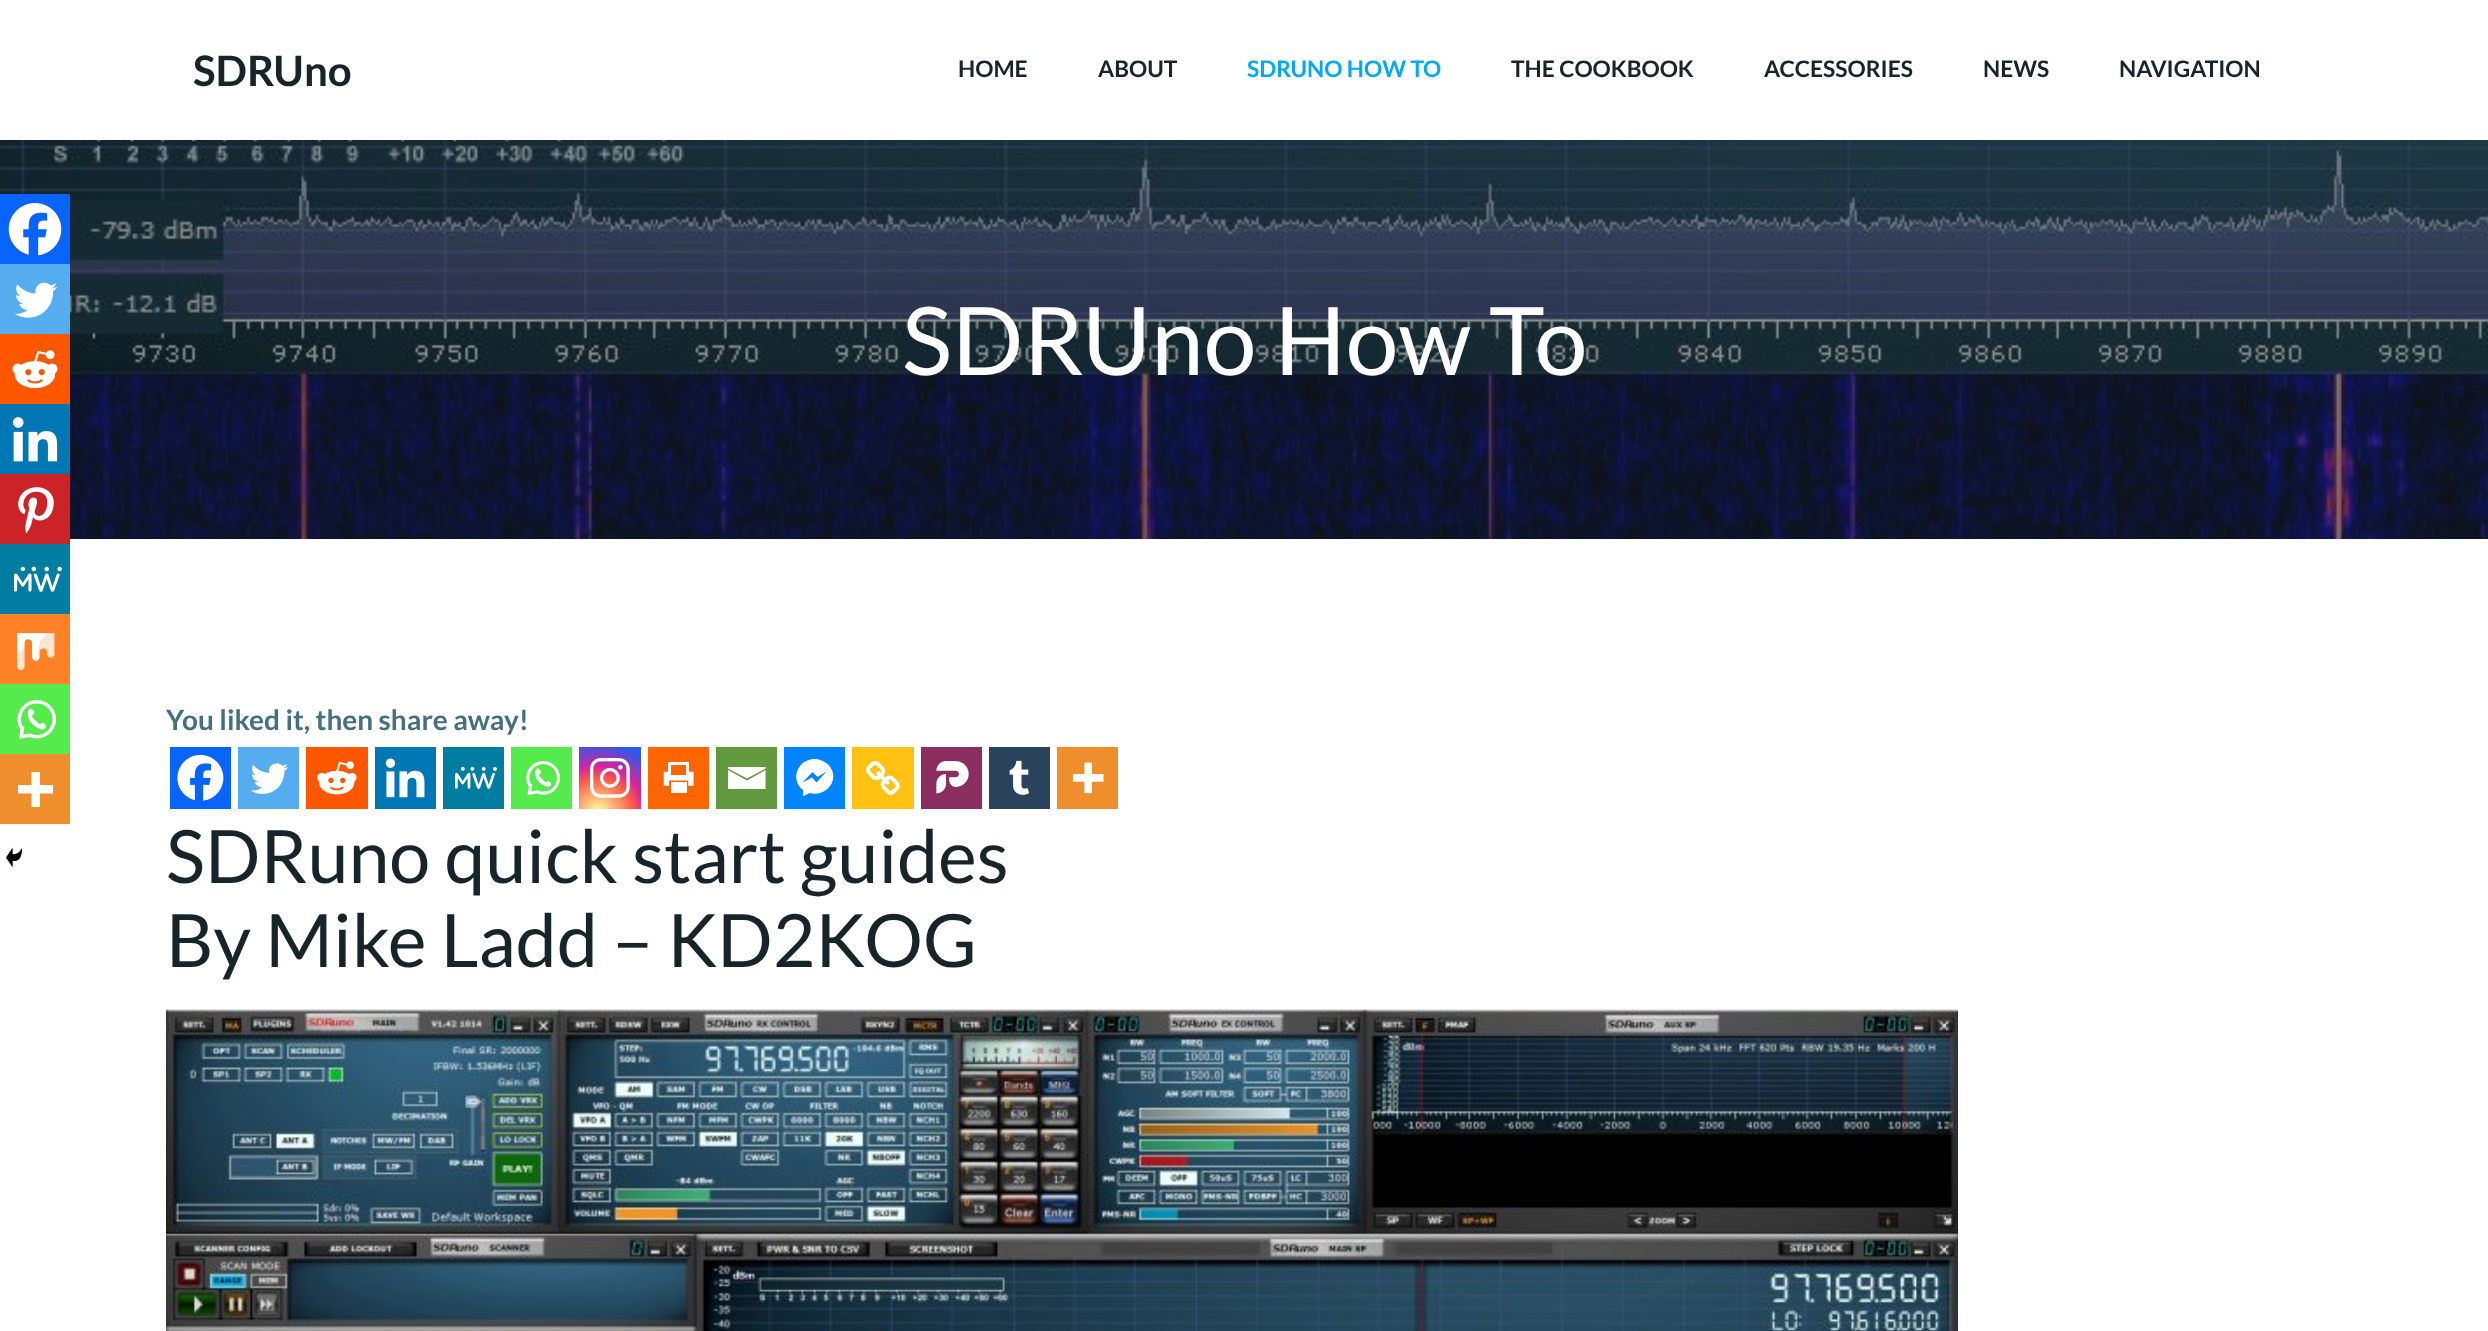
<!DOCTYPE html>
<meta charset="utf-8">
<style>body { margin: 0 } canvas { display: block }</style>
<canvas id="canvas" width="2488" height="1331"></canvas>
<img id="img1" src="images/1.png" hidden>
<img id="img2" src="images/2.png" hidden>
<img id="img3" src="images/3.png" hidden>
<img id="img4" src="images/4.png" hidden>
<img id="img5" src="images/5.png" hidden>
<img id="img6" src="images/6.png" hidden>
<img id="img7" src="images/7.png" hidden>
<img id="img8" src="images/8.png" hidden>
<img id="img9" src="images/9.png" hidden>
<img id="img10" src="images/10.png" hidden>
<img id="img11" src="images/11.png" hidden>
<img id="img12" src="images/12.png" hidden>
<img id="img13" src="images/13.png" hidden>
<img id="img14" src="images/14.png" hidden>
<img id="img15" src="images/15.png" hidden>
<img id="img16" src="images/16.png" hidden>
<img id="img17" src="images/17.png" hidden>
<img id="img18" src="images/18.png" hidden>
<img id="img19" src="images/19.png" hidden>
<img id="img20" src="images/20.png" hidden>
<img id="img21" src="images/21.png" hidden>
<img id="img22" src="images/22.png" hidden>
<img id="img23" src="images/23.png" hidden>
<script>
window.onload = function () {
    const canvas = document.getElementById('canvas');
    const context = canvas.getContext('2d');
    context.miterLimit = 4;
    context.fontKerning = 'normal';
    let gradient;

    context.fillStyle = 'rgb(255, 255, 255)';
    context.fillRect(0, 0, 2488, 1331);
    context.drawImage(document.getElementById('img1'), 0, 140, 2488, 399);
    context.fillStyle = 'rgb(7, 101, 254)';
    context.fillRect(0, 194, 70, 70);
    context.drawImage(document.getElementById('img2'), 8, 203, 54, 53);
    context.fillStyle = 'rgb(85, 172, 238)';
    context.fillRect(0, 264, 70, 70);
    context.drawImage(document.getElementById('img3'), 14, 282, 44, 36);
    context.fillStyle = 'rgb(255, 87, 0)';
    context.fillRect(0, 334, 70, 70);
    context.drawImage(document.getElementById('img4'), 12, 350, 46, 39);
    context.fillStyle = 'rgb(0, 119, 181)';
    context.fillRect(0, 404, 70, 70);
    context.drawImage(document.getElementById('img5'), 12, 417, 46, 45);
    context.fillStyle = 'rgb(204, 35, 41)';
    context.fillRect(0, 474, 70, 70);
    context.drawImage(document.getElementById('img6'), 18, 487, 36, 47);
    context.fillStyle = 'rgb(0, 125, 161)';
    context.fillRect(0, 544, 70, 70);
    context.drawImage(document.getElementById('img7'), 14, 566, 48, 26);
    context.fillStyle = 'rgb(255, 130, 38)';
    context.fillRect(0, 614, 70, 70);
    context.drawImage(document.getElementById('img8'), 17, 633, 38, 37);
    context.fillStyle = 'rgb(85, 235, 76)';
    context.fillRect(0, 684, 70, 70);
    context.drawImage(document.getElementById('img9'), 17, 700, 39, 39);
    context.fillStyle = 'rgb(238, 142, 45)';
    context.fillRect(0, 754, 70, 70);
    context.fillStyle = 'rgb(255, 255, 255)';
    context.beginPath();
    context.moveTo(40, 785);
    context.lineTo(40, 772);
    context.lineTo(31.5, 772);
    context.lineTo(31.5, 785);
    context.lineTo(18, 785);
    context.lineTo(18, 793.5);
    context.lineTo(31.5, 793.5);
    context.lineTo(31.5, 807);
    context.lineTo(40, 807);
    context.lineTo(40, 793.5);
    context.lineTo(53, 793.5);
    context.lineTo(53, 785);
    context.closePath();
    context.fill('evenodd');
    context.drawImage(document.getElementById('img10'), 6, 847, 16, 21);
    context.fillStyle = 'rgb(7, 101, 254)';
    context.fillRect(170, 747, 61, 62);
    context.drawImage(document.getElementById('img11'), 177, 754, 47, 47);
    context.fillStyle = 'rgb(85, 172, 238)';
    context.fillRect(238, 747, 61, 62);
    context.drawImage(document.getElementById('img12'), 250, 763, 39, 31);
    context.fillStyle = 'rgb(255, 87, 0)';
    context.fillRect(306, 747, 62, 62);
    context.drawImage(document.getElementById('img13'), 317, 761, 40, 34);
    context.fillStyle = 'rgb(0, 119, 181)';
    context.fillRect(375, 747, 61, 62);
    context.drawImage(document.getElementById('img14'), 385, 758, 40, 40);
    context.fillStyle = 'rgb(0, 125, 161)';
    context.fillRect(443, 747, 61, 62);
    context.drawImage(document.getElementById('img15'), 455, 766, 42, 23);
    context.fillStyle = 'rgb(85, 235, 76)';
    context.fillRect(511, 747, 61, 62);
    context.drawImage(document.getElementById('img16'), 526, 761, 34, 34);
    gradient = context.createRadialGradient(598, 813, 0, 598, 813, 78);
    gradient.addColorStop(0, 'rgb(253, 244, 151)');
    gradient.addColorStop(0.05, 'rgb(253, 244, 151)');
    gradient.addColorStop(0.45, 'rgb(253, 89, 73)');
    gradient.addColorStop(0.6, 'rgb(214, 36, 159)');
    gradient.addColorStop(0.9, 'rgb(40, 90, 235)');
    context.fillStyle = gradient;
    context.fillRect(579, 747, 62, 62);
    context.drawImage(document.getElementById('img17'), 590, 758, 40, 40);
    context.fillStyle = 'rgb(253, 101, 0)';
    context.fillRect(648, 747, 61, 62);
    context.drawImage(document.getElementById('img18'), 663, 762, 31, 31);
    context.fillStyle = 'rgb(100, 154, 63)';
    context.fillRect(716, 747, 61, 62);
    context.fillStyle = 'rgb(255, 255, 255)';
    context.beginPath();
    context.moveTo(726.5, 767);
    context.lineTo(765.5, 767);
    context.lineTo(765.5, 768.5);
    context.lineTo(747, 778.5);
    context.lineTo(728, 768.5);
    context.lineTo(728, 767);
    context.moveTo(728, 770);
    context.lineTo(747, 780.5);
    context.lineTo(765.5, 770);
    context.lineTo(765.5, 789);
    context.lineTo(728, 789);
    context.lineTo(728, 770);
    context.fill();
    context.fillStyle = 'rgb(0, 132, 255)';
    context.fillRect(784, 747, 61, 62);
    context.fillStyle = 'rgb(255, 255, 255)';
    context.beginPath();
    context.moveTo(814.5, 759);
    context.bezierCurveTo(798, 759, 789.5, 779.5, 803, 790);
    context.lineTo(803, 796.5);
    context.lineTo(809.5, 793);
    context.bezierCurveTo(827, 798, 842, 777.5, 827.5, 764);
    context.bezierCurveTo(824, 761, 819.5, 759, 814.5, 759);
    context.closePath();
    context.moveTo(816.5, 782.5);
    context.lineTo(812, 777.5);
    context.lineTo(802.5, 782.5);
    context.lineTo(812.5, 772);
    context.lineTo(817.5, 777);
    context.lineTo(826.5, 771.5);
    context.closePath();
    context.fill();
    context.fillStyle = 'rgb(255, 193, 18)';
    context.fillRect(852, 747, 62, 62);
    context.drawImage(document.getElementById('img19'), 866, 761, 34, 34);
    context.fillStyle = 'rgb(137, 46, 94)';
    context.fillRect(921, 747, 61, 62);
    context.drawImage(document.getElementById('img20'), 936, 761, 33, 33);
    context.fillStyle = 'rgb(41, 67, 93)';
    context.fillRect(989, 747, 61, 62);
    context.drawImage(document.getElementById('img21'), 1009, 760, 21, 35);
    context.fillStyle = 'rgb(238, 142, 45)';
    context.fillRect(1057, 747, 61, 62);
    context.drawImage(document.getElementById('img22'), 1072, 762, 32, 32);
    context.drawImage(document.getElementById('img23'), 166, 1009, 1792, 322);
    context.font = 'bold 42px Lato';
    context.fillStyle = 'rgb(23, 37, 42)';
    context.fillText('SDRUno', 193, 86);
    context.font = 'bold 22.75px Lato';
    context.fillText('HOME', 958, 77);
    context.fillText('ABOUT', 1098, 77);
    context.fillStyle = 'rgb(3, 169, 244)';
    context.fillText('SDRUNO HOW TO', 1247, 77);
    context.fillStyle = 'rgb(23, 37, 42)';
    context.fillText('THE COOKBOOK', 1511, 77);
    context.fillText('ACCESSORIES', 1764, 77);
    context.fillText('NEWS', 1983, 77);
    context.fillText('NAVIGATION', 2119, 77);
    context.font = '94.5px Lato';
    context.fillStyle = 'rgb(255, 255, 255)';
    context.fillText('SDRUno How To', 902, 375);
    context.font = 'bold 28px Lato';
    context.fillStyle = 'rgb(70, 112, 127)';
    context.fillText('You liked it, then share away!', 166, 730);
    context.font = '73.5px Lato';
    context.fillStyle = 'rgb(23, 37, 42)';
    context.fillText('SDRuno quick start guides', 166, 883);
    context.fillText('By Mike Ladd – KD2KOG', 166, 967);
};
</script>
